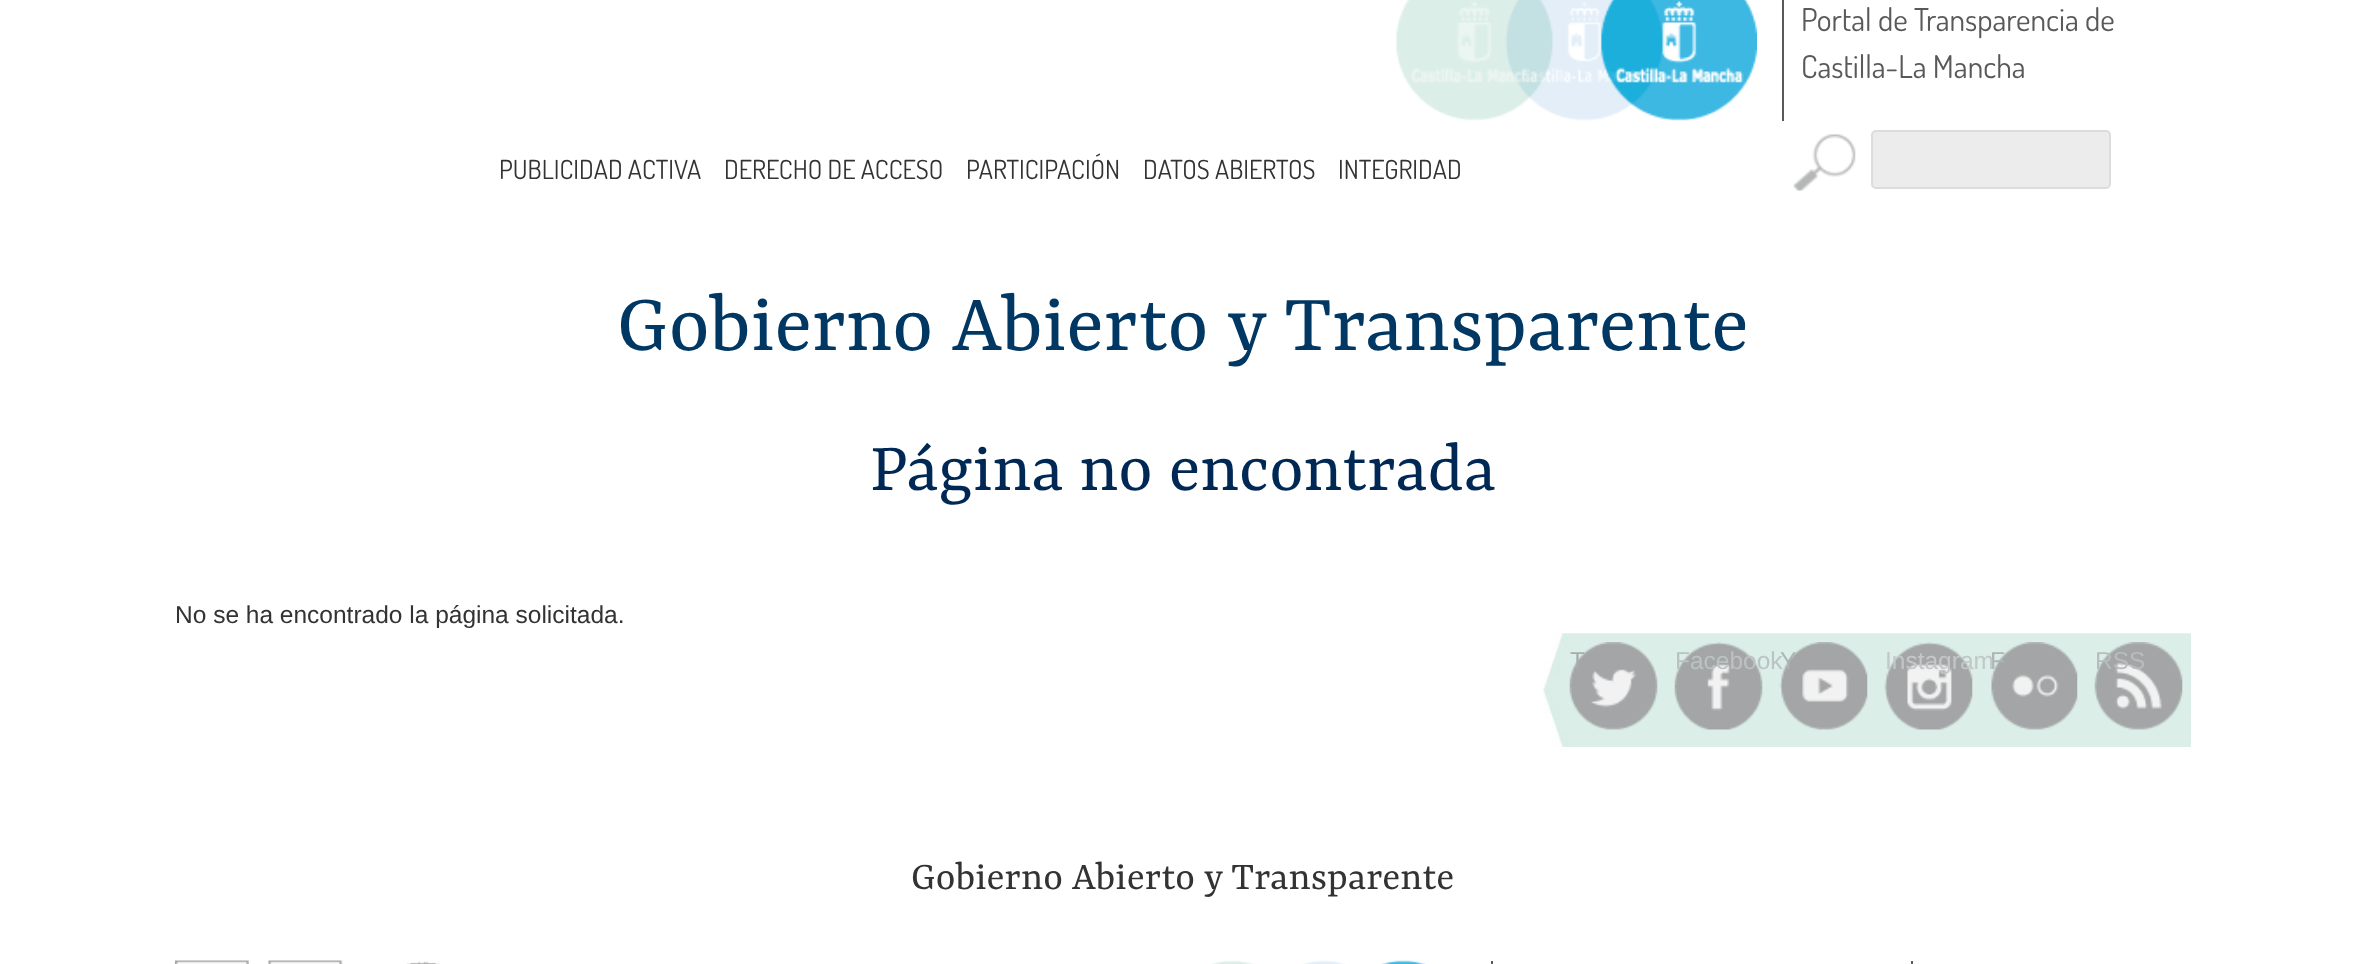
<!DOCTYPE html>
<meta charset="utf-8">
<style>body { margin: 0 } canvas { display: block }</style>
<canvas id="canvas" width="2365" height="964"></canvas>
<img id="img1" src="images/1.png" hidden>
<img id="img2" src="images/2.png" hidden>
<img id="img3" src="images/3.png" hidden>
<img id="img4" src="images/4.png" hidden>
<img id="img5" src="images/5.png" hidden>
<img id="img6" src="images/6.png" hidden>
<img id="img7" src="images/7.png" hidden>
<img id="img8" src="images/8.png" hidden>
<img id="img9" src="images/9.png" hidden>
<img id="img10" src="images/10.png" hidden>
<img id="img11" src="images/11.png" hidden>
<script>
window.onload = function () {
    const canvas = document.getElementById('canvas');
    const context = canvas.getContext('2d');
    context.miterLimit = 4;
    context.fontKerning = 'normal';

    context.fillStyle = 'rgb(255, 255, 255)';
    context.fillRect(0, 0, 2365, 964);
    context.drawImage(document.getElementById('img1'), 1396, 0, 361, 121);
    context.fillStyle = 'rgb(89, 89, 89)';
    context.fillRect(1782, 0, 2, 121);
    context.drawImage(document.getElementById('img2'), 1793, 134, 63, 57);
    context.fillStyle = 'rgb(236, 236, 236)';
    context.beginPath();
    context.roundRect(1872, 131, 238, 57, 4);
    context.fill();
    context.strokeStyle = 'rgb(220, 220, 220)';
    context.lineWidth = 2;
    context.stroke();
    context.drawImage(document.getElementById('img3'), 1543, 633, 648, 114);
    context.drawImage(document.getElementById('img4'), 1569, 642, 89, 88);
    context.drawImage(document.getElementById('img5'), 1674, 642, 89, 88);
    context.drawImage(document.getElementById('img6'), 1779, 642, 89, 88);
    context.drawImage(document.getElementById('img7'), 1884, 642, 89, 88);
    context.drawImage(document.getElementById('img8'), 1991, 642, 87, 88);
    context.drawImage(document.getElementById('img9'), 2094, 642, 89, 88);
    context.drawImage(document.getElementById('img10'), 175, 960, 265, 4);
    context.drawImage(document.getElementById('img11'), 1211, 960, 215, 4);
    context.fillStyle = 'rgb(89, 89, 89)';
    context.fillRect(1911, 961, 2, 3);
    context.fillRect(1491, 961, 2, 3);
    context.font = '31.5px Dosis';
    context.fillText('Portal de Transparencia de', 1801, 31);
    context.fillText('Castilla-La Mancha', 1801, 78);
    context.font = '26.25px Dosis';
    context.fillStyle = 'rgb(51, 51, 51)';
    context.fillText('PUBLICIDAD ACTIVA', 499, 179);
    context.fillText('DERECHO DE ACCESO', 724, 179);
    context.fillText('PARTICIPACIÓN', 966, 179);
    context.fillText('DATOS ABIERTOS', 1143, 179);
    context.fillText('INTEGRIDAD', 1338, 179);
    context.font = '87.5px Yrsa';
    context.fillStyle = 'rgb(0, 56, 99)';
    context.fillText('Gobierno Abierto y Transparente', 617, 350);
    context.font = '73.5px Yrsa';
    context.fillStyle = 'rgb(0, 40, 85)';
    context.fillText('Página no encontrada', 870, 490);
    context.font = '24.5px Liberation Sans';
    context.fillStyle = 'rgb(51, 51, 51)';
    context.fillText('No se ha encontrado la página solicitada.', 175, 623);
    context.fillStyle = 'rgb(168, 172, 172)';
    context.fillText('T', 1570, 669);
    context.fillStyle = 'rgb(175, 181, 181)';
    context.fillText('Y', 1780, 669);
    context.fillStyle = 'rgb(187, 195, 194)';
    context.fillText('Facebook', 1675, 669);
    context.fillStyle = 'rgb(175, 181, 181)';
    context.fillText('F', 1990, 669);
    context.fillStyle = 'rgb(193, 200, 199)';
    context.fillText('Instagram', 1885, 669);
    context.fillStyle = 'rgb(184, 189, 188)';
    context.fillText('RSS', 2095, 669);
    context.font = '42px Yrsa';
    context.fillStyle = 'rgb(51, 51, 51)';
    context.fillText('Gobierno Abierto y Transparente', 911, 889);
};
</script>
